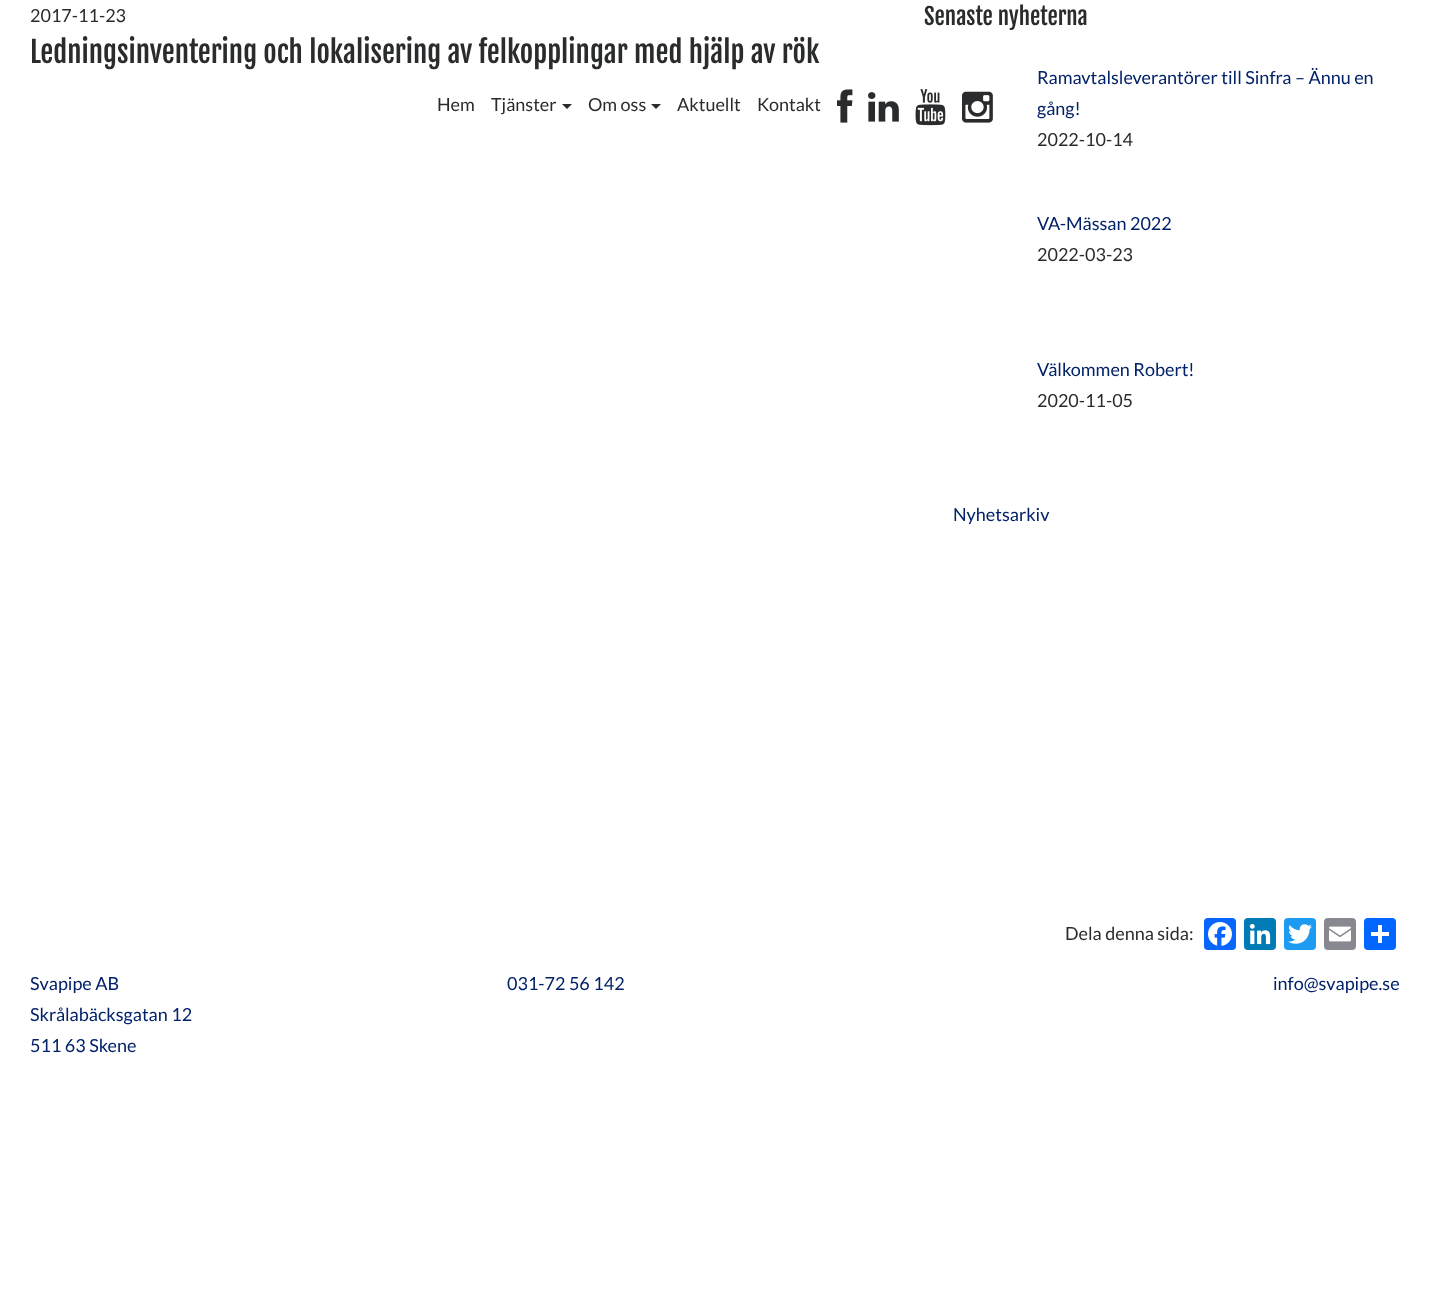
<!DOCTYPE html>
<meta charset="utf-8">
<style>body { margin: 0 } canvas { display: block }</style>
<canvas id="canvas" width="1430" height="1294"></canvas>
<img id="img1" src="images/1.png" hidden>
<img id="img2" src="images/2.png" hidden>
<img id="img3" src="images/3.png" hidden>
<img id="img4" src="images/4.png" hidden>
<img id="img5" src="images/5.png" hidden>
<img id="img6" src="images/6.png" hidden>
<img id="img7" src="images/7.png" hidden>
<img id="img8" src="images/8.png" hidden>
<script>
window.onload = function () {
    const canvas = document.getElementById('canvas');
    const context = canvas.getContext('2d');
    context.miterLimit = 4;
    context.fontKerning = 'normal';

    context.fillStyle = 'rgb(255, 255, 255)';
    context.fillRect(0, 0, 1430, 1294);
    context.fillStyle = 'rgb(41, 43, 44)';
    context.beginPath();
    context.moveTo(562, 104);
    context.lineTo(572, 104);
    context.lineTo(567, 109);
    context.closePath();
    context.fill();
    context.beginPath();
    context.moveTo(651, 104);
    context.lineTo(661, 104);
    context.lineTo(656, 109);
    context.closePath();
    context.fill();
    context.drawImage(document.getElementById('img1'), 837, 89, 16, 34);
    context.drawImage(document.getElementById('img2'), 868, 92, 31, 30);
    context.drawImage(document.getElementById('img3'), 915, 89, 31, 37);
    context.drawImage(document.getElementById('img4'), 962, 91, 31, 32);
    context.fillStyle = 'rgb(8, 102, 255)';
    context.beginPath();
    context.roundRect(1204, 918, 32, 32, 4);
    context.fill();
    context.drawImage(document.getElementById('img5'), 1208, 922, 24, 24);
    context.fillStyle = 'rgb(0, 123, 181)';
    context.beginPath();
    context.roundRect(1244, 918, 32, 32, 4);
    context.fill();
    context.drawImage(document.getElementById('img6'), 1249, 923, 22, 22);
    context.fillStyle = 'rgb(29, 155, 240)';
    context.beginPath();
    context.roundRect(1284, 918, 32, 32, 4);
    context.fill();
    context.drawImage(document.getElementById('img7'), 1288, 924, 24, 20);
    context.fillStyle = 'rgb(136, 137, 144)';
    context.beginPath();
    context.roundRect(1324, 918, 32, 32, 4);
    context.fill();
    context.drawImage(document.getElementById('img8'), 1329, 926, 22, 16);
    context.fillStyle = 'rgb(1, 102, 255)';
    context.beginPath();
    context.roundRect(1364, 918, 32, 32, 4);
    context.fill();
    context.fillStyle = 'rgb(255, 255, 255)';
    context.fillRect(1378, 925, 4, 18);
    context.fillRect(1371, 932, 18, 4);
    context.font = '18px Lato';
    context.fillStyle = 'rgb(41, 43, 44)';
    context.fillText('2017-11-23', 30, 22);
    context.font = '29px Fjalla One';
    context.fillText('Ledningsinventering och lokalisering av felkopplingar med hjälp av rök', 30, 63);
    context.font = '23px Fjalla One';
    context.fillText('Senaste nyheterna', 924, 25);
    context.font = '18px Lato';
    context.fillStyle = 'rgb(1, 33, 105)';
    context.fillText('Ramavtalsleverantörer till Sinfra – Ännu en', 1037, 84);
    context.fillText('gång!', 1037, 115);
    context.fillStyle = 'rgb(41, 43, 44)';
    context.fillText('2022-10-14', 1037, 146);
    context.fillStyle = 'rgb(1, 33, 105)';
    context.fillText('VA-Mässan 2022', 1037, 230);
    context.fillStyle = 'rgb(41, 43, 44)';
    context.fillText('2022-03-23', 1037, 261);
    context.fillStyle = 'rgb(1, 33, 105)';
    context.fillText('Välkommen Robert!', 1037, 376);
    context.fillStyle = 'rgb(41, 43, 44)';
    context.fillText('2020-11-05', 1037, 407);
    context.fillStyle = 'rgb(1, 33, 105)';
    context.fillText('Nyhetsarkiv', 953, 521);
    context.fillStyle = 'rgb(41, 43, 44)';
    context.fillText('Hem', 437, 111);
    context.fillText('Tjänster', 491, 111);
    context.fillText('Om oss', 588, 111);
    context.fillText('Aktuellt', 677, 111);
    context.fillText('Kontakt', 757, 111);
    context.fillText('Dela denna sida:', 1065, 940);
    context.fillStyle = 'rgb(1, 33, 105)';
    context.fillText('Svapipe AB', 30, 990);
    context.fillText('Skrålabäcksgatan 12', 30, 1021);
    context.fillText('511 63 Skene', 30, 1052);
    context.fillText('031-72 56 142', 507, 990);
    context.fillText('info@svapipe.se', 1273, 990);
};
</script>
